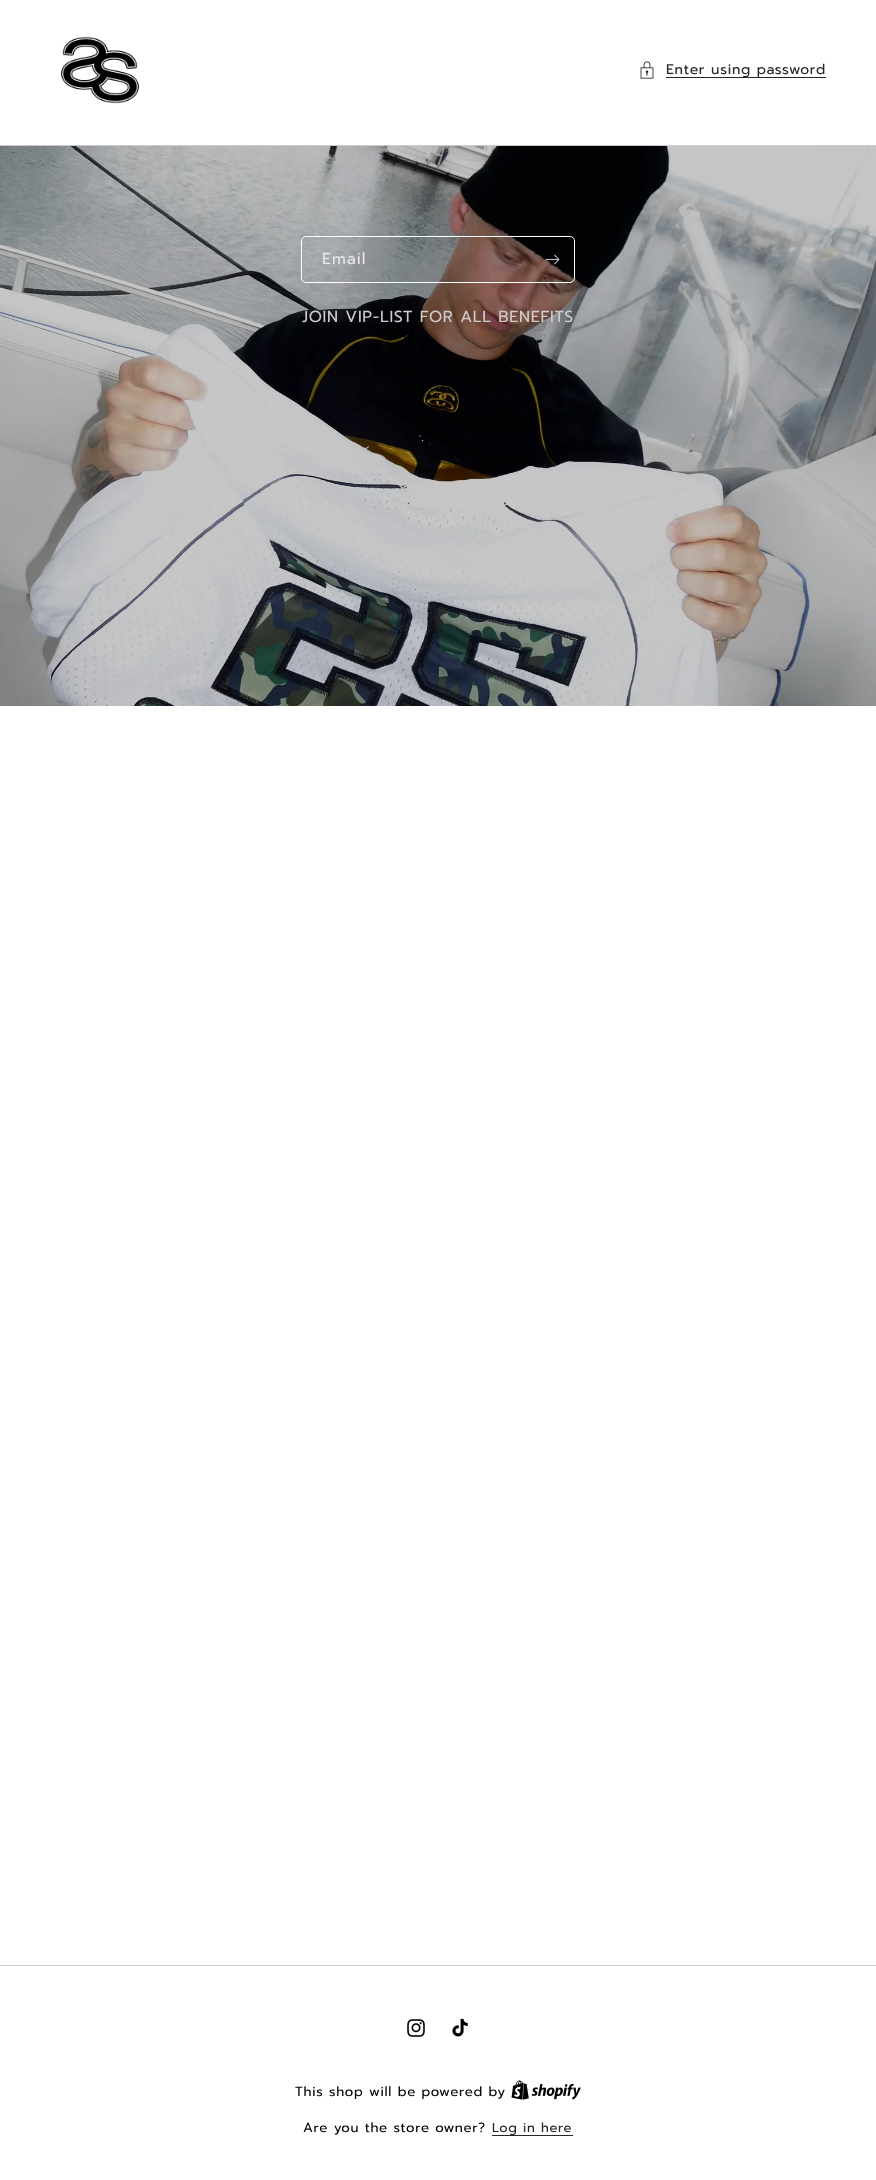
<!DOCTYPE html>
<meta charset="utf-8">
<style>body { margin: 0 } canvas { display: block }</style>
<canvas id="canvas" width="876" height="2180"></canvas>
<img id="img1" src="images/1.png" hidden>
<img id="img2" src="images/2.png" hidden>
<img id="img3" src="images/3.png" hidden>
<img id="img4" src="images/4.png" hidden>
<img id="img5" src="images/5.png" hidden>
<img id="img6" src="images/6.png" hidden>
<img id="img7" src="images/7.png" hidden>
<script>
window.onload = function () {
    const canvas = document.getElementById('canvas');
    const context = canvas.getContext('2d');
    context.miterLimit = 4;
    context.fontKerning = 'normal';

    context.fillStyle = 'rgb(255, 255, 255)';
    context.fillRect(0, 0, 876, 2180);
    context.drawImage(document.getElementById('img1'), 61, 36, 78, 68);
    context.drawImage(document.getElementById('img2'), 640, 61, 14, 18);
    context.fillStyle = 'rgb(38, 38, 38)';
    context.fillRect(666, 77, 160, 1);
    context.fillStyle = 'rgb(204, 204, 204)';
    context.fillRect(0, 145, 876, 1);
    context.drawImage(document.getElementById('img3'), 0, 146, 876, 560);
    context.beginPath();
    context.roundRect(301.5, 236.5, 273, 46, 4.5);
    context.strokeStyle = 'rgb(255, 255, 255)';
    context.stroke();
    context.drawImage(document.getElementById('img4'), 545, 254, 15, 11);
    context.fillRect(0, 1965, 876, 1);
    context.drawImage(document.getElementById('img5'), 407, 2019, 18, 18);
    context.drawImage(document.getElementById('img6'), 452, 2018, 16, 19);
    context.drawImage(document.getElementById('img7'), 511, 2080, 70, 20);
    context.fillStyle = 'rgb(38, 38, 38)';
    context.fillRect(492, 2135, 81, 1);
    context.letterSpacing = '0.7px';
    context.font = '14px Prompt';
    context.fillText('Enter using password', 666, 74);
    context.letterSpacing = '1px';
    context.font = '16px Prompt';
    context.fillStyle = 'rgb(231, 231, 232)';
    context.fillText('Email', 322, 264);
    context.letterSpacing = '0.7px';
    context.fillStyle = 'rgb(208, 204, 203)';
    context.fillText('JOIN VIP-LIST FOR ALL BENEFITS', 302, 322);
    context.font = '13.3px Prompt';
    context.fillStyle = 'rgb(0, 0, 0)';
    context.fillText('This shop will be powered by', 295, 2096);
    context.fillText('Are you the store owner?', 303, 2132);
    context.font = '13px Prompt';
    context.fillStyle = 'rgb(38, 38, 38)';
    context.fillText('Log in here', 492, 2132);
};
</script>
